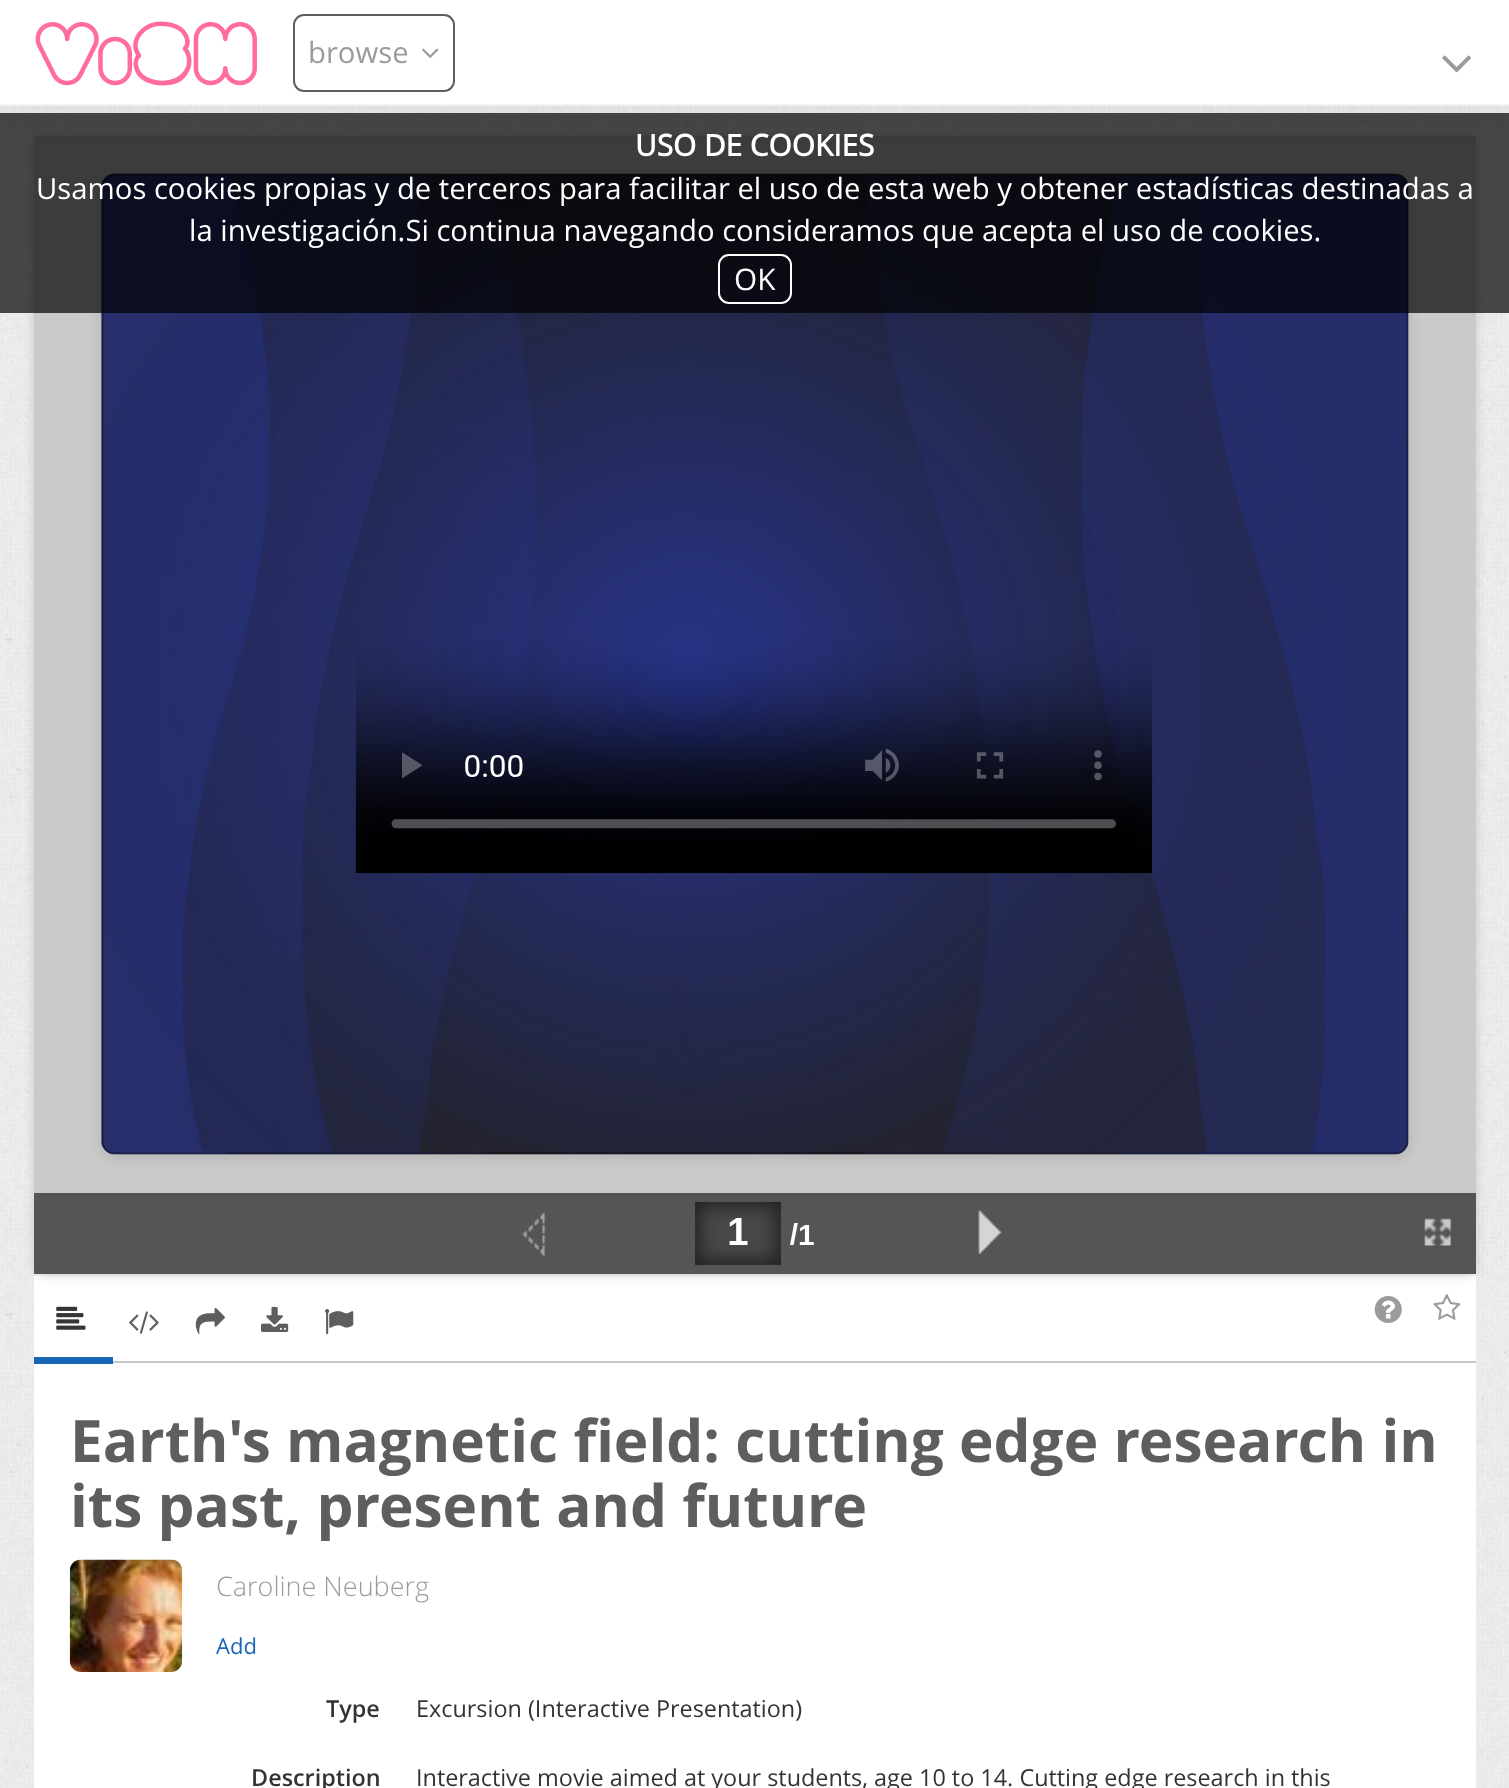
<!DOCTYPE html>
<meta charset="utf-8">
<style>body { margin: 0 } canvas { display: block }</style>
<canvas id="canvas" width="1509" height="1788"></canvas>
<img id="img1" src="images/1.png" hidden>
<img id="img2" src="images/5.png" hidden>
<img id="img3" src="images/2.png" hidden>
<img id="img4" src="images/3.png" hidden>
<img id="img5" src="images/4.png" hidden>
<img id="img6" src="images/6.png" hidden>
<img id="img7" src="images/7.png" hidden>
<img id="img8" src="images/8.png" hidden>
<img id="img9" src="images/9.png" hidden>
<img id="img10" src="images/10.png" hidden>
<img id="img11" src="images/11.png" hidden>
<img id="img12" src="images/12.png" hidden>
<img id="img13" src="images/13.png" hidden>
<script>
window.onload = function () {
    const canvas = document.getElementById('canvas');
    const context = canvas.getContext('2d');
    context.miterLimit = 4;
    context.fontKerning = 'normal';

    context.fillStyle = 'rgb(255, 255, 255)';
    context.fillRect(0, 0, 1509, 1788);
    context.drawImage(document.getElementById('img1'), 0, 106, 1509, 1682);
    context.fillRect(34, 1276, 1442, 512);
    context.fillStyle = 'rgb(242, 242, 242)';
    context.fillRect(34, 1274, 1442, 2);
    context.fillStyle = 'rgba(0, 0, 0, 0.1)';
    context.filter = 'blur(4.5px)';
    context.beginPath();
    context.roundRect(32, 135, 1446, 1143, 14);
    context.fill();
    context.filter = 'none';
    context.fillStyle = 'rgb(255, 255, 255)';
    context.fillRect(34, 135, 1442, 1);
    context.drawImage(document.getElementById('img2'), 34, 135, 1442, 1139);
    context.fillStyle = 'rgba(0, 0, 0, 0.7)';
    context.fillRect(0, 113, 1509, 200);
    context.fillStyle = 'rgba(0, 0, 0, 0.1)';
    context.filter = 'blur(22.5px)';
    context.beginPath();
    context.rect(0, -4, 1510, 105);
    context.fill();
    context.filter = 'none';
    context.fillStyle = 'rgb(255, 255, 255)';
    context.fillRect(0, 0, 1509, 104);
    context.fillStyle = 'rgb(242, 242, 242)';
    context.fillRect(0, 104, 1509, 2);
    context.drawImage(document.getElementById('img3'), 35, 21, 222, 65);
    context.beginPath();
    context.roundRect(294, 15, 160, 76, 10);
    context.strokeStyle = 'rgb(94, 94, 94)';
    context.lineWidth = 2;
    context.stroke();
    context.drawImage(document.getElementById('img4'), 422, 48, 17, 10);
    context.drawImage(document.getElementById('img5'), 1442, 55, 29, 18);
    context.drawImage(document.getElementById('img6'), 1433, 1294, 28, 26);
    context.fillStyle = 'rgb(199, 199, 199)';
    context.fillRect(113, 1361, 1363, 2);
    context.fillStyle = 'rgb(24, 103, 183)';
    context.fillRect(34, 1357, 79, 7);
    context.drawImage(document.getElementById('img7'), 56, 1306, 30, 24);
    context.drawImage(document.getElementById('img8'), 129, 1311, 30, 23);
    context.drawImage(document.getElementById('img9'), 195, 1308, 30, 26);
    context.drawImage(document.getElementById('img10'), 261, 1306, 28, 26);
    context.drawImage(document.getElementById('img11'), 325, 1309, 29, 26);
    context.drawImage(document.getElementById('img12'), 1374, 1296, 28, 27);
    context.drawImage(document.getElementById('img13'), 69, 1559, 114, 113);
    context.beginPath();
    context.roundRect(719, 255, 72, 48, 10);
    context.strokeStyle = 'rgb(255, 255, 255)';
    context.stroke();
    context.font = '29.25px Open Sans';
    context.fillStyle = 'rgb(155, 155, 155)';
    context.fillText('browse', 308, 63);
    context.font = 'bold 58.5px Open Sans';
    context.fillStyle = 'rgb(94, 94, 94)';
    context.fillText('Earth\'s magnetic field: cutting edge research in', 70, 1462);
    context.fillText('its past, present and future', 70, 1527);
    context.font = '300 27px Open Sans';
    context.fillStyle = 'rgb(155, 155, 155)';
    context.fillText('Caroline Neuberg', 216, 1596);
    context.font = '22px Open Sans';
    context.fillStyle = 'rgb(24, 103, 183)';
    context.fillText('Add', 216, 1654);
    context.font = '600 23.4px Open Sans';
    context.fillStyle = 'rgb(51, 51, 51)';
    context.fillText('Type', 326, 1717);
    context.font = '23.4px Open Sans';
    context.fillText('Excursion (Interactive Presentation)', 416, 1717);
    context.font = '600 23.4px Open Sans';
    context.fillText('Description', 251, 1786);
    context.font = '23.4px Open Sans';
    context.fillText('Interactive movie aimed at your students, age 10 to 14. Cutting edge research in this', 416, 1786);
    context.font = 'bold 29.75px "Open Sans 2"';
    context.fillStyle = 'rgb(255, 255, 255)';
    context.fillText('USO DE COOKIES', 635, 156);
    context.font = '29.25px Open Sans';
    context.fillText('Usamos cookies propias y de terceros para facilitar el uso de esta web y obtener estadísticas destinadas a', 36, 199);
    context.fillText('la investigación.Si continua navegando consideramos que acepta el uso de cookies.', 189, 241);
    context.font = '29.75px Open Sans';
    context.fillText('OK', 734, 290);
};
</script>
